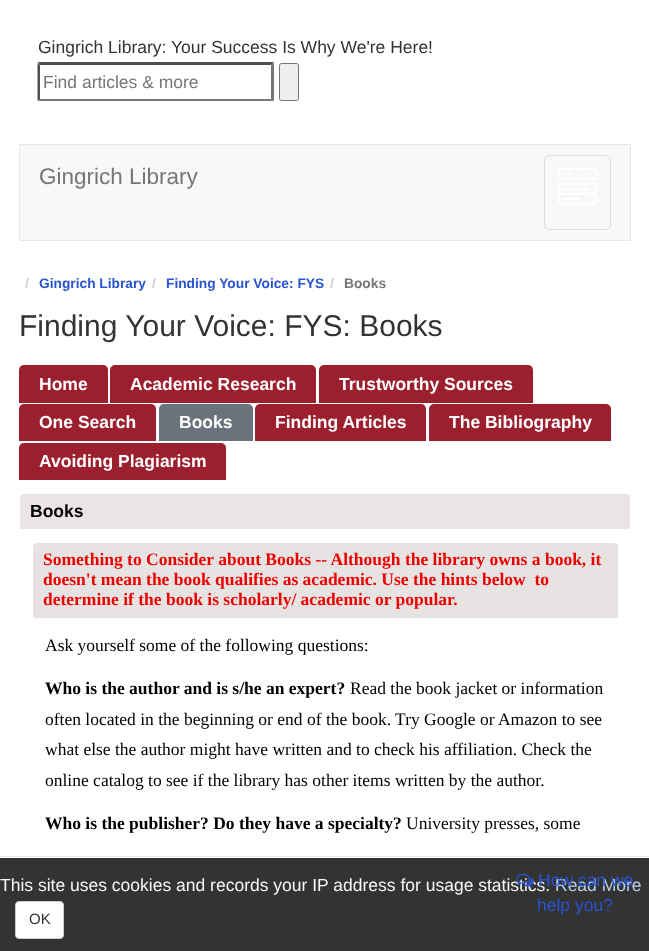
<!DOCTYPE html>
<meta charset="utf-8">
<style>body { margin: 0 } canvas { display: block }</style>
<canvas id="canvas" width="649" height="951"></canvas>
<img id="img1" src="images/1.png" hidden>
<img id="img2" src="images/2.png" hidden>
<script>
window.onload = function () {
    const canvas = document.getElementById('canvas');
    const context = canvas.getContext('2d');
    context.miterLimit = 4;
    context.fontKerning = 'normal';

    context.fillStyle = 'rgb(255, 255, 255)';
    context.fillRect(0, 0, 649, 951);
    context.fillStyle = 'rgb(79, 79, 79)';
    context.beginPath();
    context.moveTo(38, 62);
    context.lineTo(274, 62);
    context.lineTo(271, 65);
    context.lineTo(40, 65);
    context.closePath();
    context.fill();
    context.fillStyle = 'rgb(118, 118, 118)';
    context.beginPath();
    context.moveTo(274, 62.5);
    context.lineTo(274, 101);
    context.lineTo(271, 99);
    context.lineTo(271, 65);
    context.closePath();
    context.fill();
    context.beginPath();
    context.moveTo(274, 101);
    context.lineTo(38, 101);
    context.lineTo(40, 99);
    context.lineTo(271, 99);
    context.closePath();
    context.fill();
    context.fillStyle = 'rgb(79, 79, 79)';
    context.beginPath();
    context.moveTo(37.5, 101);
    context.lineTo(37.5, 62.5);
    context.lineTo(40, 65);
    context.lineTo(40, 99);
    context.closePath();
    context.fill();
    context.fillStyle = 'rgb(239, 239, 239)';
    context.beginPath();
    context.roundRect(279.5, 63.5, 19, 37, 2);
    context.fill();
    context.strokeStyle = 'rgb(118, 118, 118)';
    context.stroke();
    context.fillStyle = 'rgb(248, 248, 248)';
    context.beginPath();
    context.rect(19.5, 144.5, 611, 96);
    context.fill();
    context.strokeStyle = 'rgb(231, 231, 231)';
    context.stroke();
    context.beginPath();
    context.roundRect(544.5, 155.5, 66, 74, 4.5);
    context.strokeStyle = 'rgb(221, 221, 221)';
    context.stroke();
    context.drawImage(document.getElementById('img1'), 558, 168, 39, 37);
    context.fillStyle = 'rgb(156, 31, 46)';
    context.beginPath();
    context.roundRect(19, 365, 89, 38, [5, 5, 0, 0]);
    context.fill();
    context.beginPath();
    context.roundRect(110, 365, 206, 38, [5, 5, 0, 0]);
    context.fill();
    context.beginPath();
    context.roundRect(319, 365, 214, 38, [5, 5, 0, 0]);
    context.fill();
    context.beginPath();
    context.roundRect(19, 404, 137, 37, [5, 5, 0, 0]);
    context.fill();
    context.fillStyle = 'rgb(106, 115, 123)';
    context.beginPath();
    context.roundRect(159, 404, 94, 37, [5, 5, 0, 0]);
    context.fill();
    context.fillStyle = 'rgb(156, 31, 46)';
    context.beginPath();
    context.roundRect(255, 404, 171, 37, [5, 5, 0, 0]);
    context.fill();
    context.beginPath();
    context.roundRect(429, 404, 182, 37, [5, 5, 0, 0]);
    context.fill();
    context.beginPath();
    context.roundRect(19, 443, 207, 37, [5, 5, 0, 0]);
    context.fill();
    context.fillStyle = 'rgb(235, 228, 228)';
    context.beginPath();
    context.roundRect(20, 494, 610, 36, [4, 4, 0, 0]);
    context.fill();
    context.fillStyle = 'rgb(255, 255, 255)';
    context.fillRect(20, 529, 610, 1);
    context.fillStyle = 'rgb(232, 227, 227)';
    context.beginPath();
    context.roundRect(33, 543, 585, 76, [4, 4, 0, 0]);
    context.fill();
    context.fillStyle = 'rgb(255, 255, 255)';
    context.fillRect(33, 618, 585, 1);
    context.fillStyle = 'rgb(51, 51, 51)';
    context.fillRect(0, 858, 649, 93);
    context.fillStyle = 'rgb(231, 231, 231)';
    context.fillRect(0, 856, 649, 1);
    context.fillStyle = 'rgb(255, 255, 255)';
    context.beginPath();
    context.roundRect(15.5, 901.5, 48, 37, 3.5);
    context.fill();
    context.strokeStyle = 'rgb(204, 204, 204)';
    context.stroke();
    context.font = '17.5px Liberation Sans';
    context.fillStyle = 'rgb(51, 51, 51)';
    context.fillText('Gingrich Library: Your Success Is Why We\'re Here!', 38, 53);
    context.fillStyle = 'rgb(118, 118, 118)';
    context.fillText('Find articles & more', 43, 88);
    context.font = '22.5px Liberation Sans';
    context.fillText('Gingrich Library', 39, 184);
    context.font = 'bold 13.75px Liberation Sans';
    context.fillStyle = 'rgb(204, 204, 204)';
    context.fillText('/', 25, 288);
    context.fillStyle = 'rgb(41, 84, 209)';
    context.fillText('Gingrich Library', 39, 288);
    context.fillStyle = 'rgb(204, 204, 204)';
    context.fillText('/', 152, 288);
    context.fillStyle = 'rgb(41, 84, 209)';
    context.fillText('Finding Your Voice: FYS', 166, 288);
    context.fillStyle = 'rgb(204, 204, 204)';
    context.fillText('/', 330, 288);
    context.fillStyle = 'rgb(118, 118, 118)';
    context.fillText('Books', 344, 288);
    context.font = '30px Liberation Sans';
    context.fillStyle = 'rgb(51, 51, 51)';
    context.fillText('Finding Your Voice: FYS: Books', 19, 336);
    context.font = 'bold 17.5px Liberation Sans';
    context.fillStyle = 'rgb(255, 255, 255)';
    context.fillText('Home', 39, 390);
    context.fillText('Academic Research', 130, 390);
    context.fillText('Trustworthy Sources', 339, 390);
    context.fillText('One Search', 39, 428);
    context.fillText('Books', 179, 428);
    context.fillText('Finding Articles', 275, 428);
    context.fillText('The Bibliography', 449, 428);
    context.fillText('Avoiding Plagiarism', 39, 467);
    context.fillStyle = 'rgb(0, 0, 0)';
    context.fillText('Books', 30, 517);
    context.font = 'bold 17.5px Liberation Serif';
    context.fillStyle = 'rgb(238, 0, 0)';
    context.fillText('Something to Consider about Books -- Although the library owns a book, it', 43, 565);
    context.fillText('doesn\'t mean the book qualifies as academic. Use the hints below  to', 43, 585);
    context.fillText('determine if the book is scholarly/ academic or popular.', 43, 605);
    context.font = '17.5px Liberation Serif';
    context.fillStyle = 'rgb(0, 0, 0)';
    context.fillText('Ask yourself some of the following questions:', 45, 651);
    context.font = 'bold 17.5px Liberation Serif';
    context.fillText('Who is the author and is s/he an expert?', 45, 694);
    context.font = '17.5px Liberation Serif';
    context.fillText('Read the book jacket or information', 350, 694);
    context.fillText('often located in the beginning or end of the book. Try Google or Amazon to see', 45, 725);
    context.fillText('what else the author might have written and to check his affiliation. Check the', 45, 755);
    context.fillText('online catalog to see if the library has other items written by the author.', 45, 786);
    context.font = 'bold 17.5px Liberation Serif';
    context.fillText('Who is the publisher? Do they have a specialty?', 45, 829);
    context.font = '17.5px Liberation Serif';
    context.fillText('University presses, some', 406, 829);
    context.font = '17.5px Liberation Sans';
    context.fillStyle = 'rgb(41, 84, 209)';
    context.fillText('help you?', 537, 911);
    context.fillStyle = 'rgb(248, 248, 248)';
    context.fillText('This site uses cookies and records your IP address for usage statistics.', 0, 891);
    context.drawImage(document.getElementById('img2'), 516, 873, 18, 15);
    context.fillStyle = 'rgb(185, 211, 235)';
    context.fillText('Read More', 555, 891);
    context.fillStyle = 'rgb(41, 84, 209)';
    context.fillText('How can we', 538, 886);
    context.font = '15px Liberation Sans';
    context.fillStyle = 'rgb(51, 51, 51)';
    context.fillText('OK', 29, 924);
};
</script>
